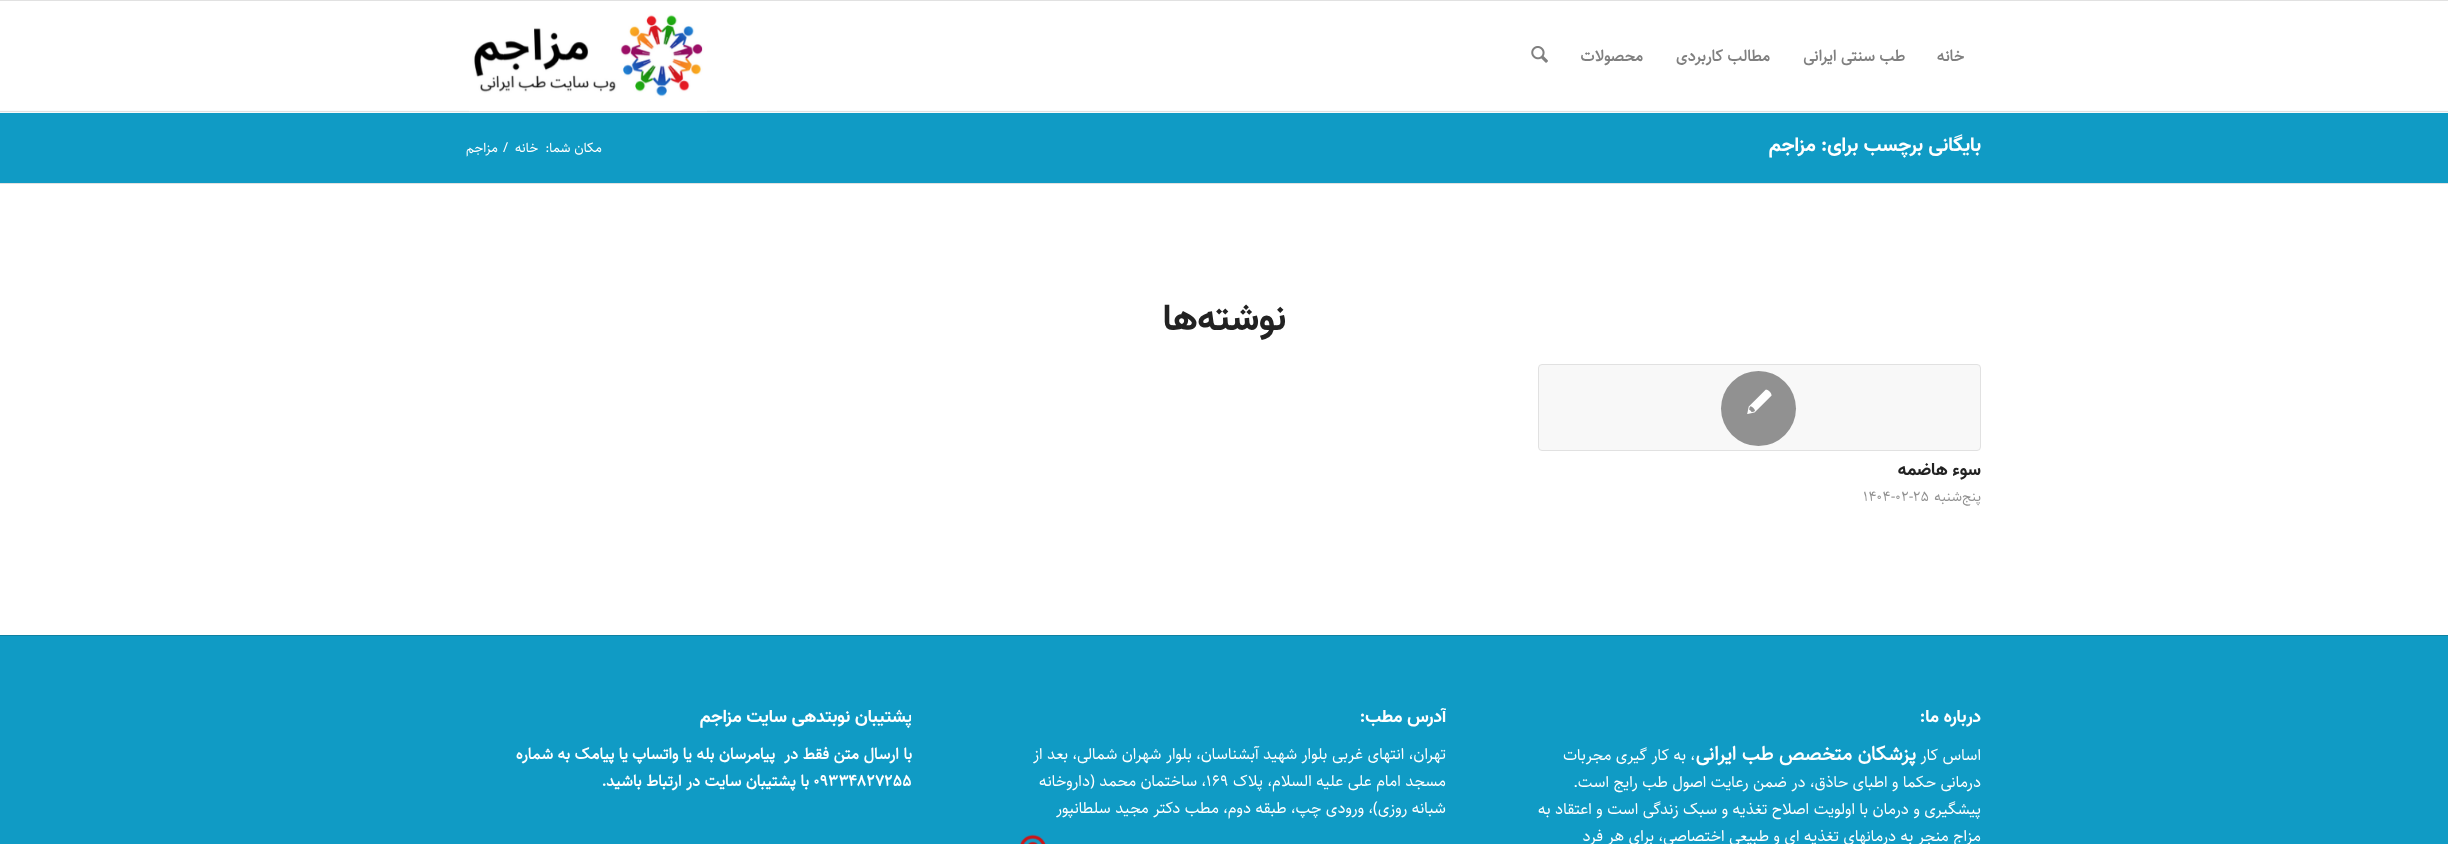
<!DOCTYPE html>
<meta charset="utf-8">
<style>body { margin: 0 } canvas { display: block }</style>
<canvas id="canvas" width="2448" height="844"></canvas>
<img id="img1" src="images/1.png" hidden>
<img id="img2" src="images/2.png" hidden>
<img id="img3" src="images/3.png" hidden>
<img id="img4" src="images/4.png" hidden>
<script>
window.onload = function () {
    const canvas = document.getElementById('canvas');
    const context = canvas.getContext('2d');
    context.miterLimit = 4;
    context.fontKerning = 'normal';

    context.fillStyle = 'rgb(255, 255, 255)';
    context.fillRect(0, 0, 2448, 844);
    context.fillStyle = 'rgb(225, 225, 225)';
    context.fillRect(0, 0, 2448, 1);
    context.fillRect(0, 111, 2448, 1);
    context.drawImage(document.getElementById('img1'), 1531, 46, 17, 17);
    context.fillStyle = 'rgb(249, 252, 253)';
    context.fillRect(0, 110, 2448, 1);
    context.drawImage(document.getElementById('img2'), 469, 14, 238, 98);
    context.fillStyle = 'rgb(16, 155, 197)';
    context.fillRect(0, 113, 2448, 70);
    context.fillStyle = 'rgb(243, 250, 252)';
    context.fillRect(0, 112, 2448, 1);
    context.fillStyle = 'rgb(225, 225, 225)';
    context.fillRect(0, 183, 2448, 1);
    context.fillStyle = 'rgb(248, 248, 248)';
    context.beginPath();
    context.roundRect(1538.5, 364.5, 442, 86, 3.5);
    context.fill();
    context.strokeStyle = 'rgb(225, 225, 225)';
    context.stroke();
    context.fillStyle = 'rgb(145, 145, 145)';
    context.beginPath();
    context.arc(1758.5, 408.5, 37.5, 0, 2 * Math.PI);
    context.fill();
    context.drawImage(document.getElementById('img3'), 1747, 389, 25, 25);
    context.fillStyle = 'rgb(16, 155, 197)';
    context.fillRect(0, 636, 2448, 208);
    context.fillStyle = 'rgb(15, 129, 161)';
    context.fillRect(0, 635, 2448, 1);
    context.drawImage(document.getElementById('img4'), 1020, 834, 26, 10);
    context.direction = 'rtl';
    context.font = 'bold 16.25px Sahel';
    context.fillStyle = 'rgb(128, 128, 128)';
    context.fillText('خانه', 1964, 61);
    context.fillText('طب سنتی ایرانی', 1905, 61);
    context.fillText('مطالب کاربردی', 1770, 61);
    context.fillText('محصولات', 1643, 61);
    context.font = 'bold 20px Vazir';
    context.fillStyle = 'rgb(255, 255, 255)';
    context.fillText('بایگانی برچسب برای: مزاجم', 1981, 151);
    context.font = '13.75px Sahel';
    context.fillText('مکان شما:', 602, 152);
    context.fillText('خانه', 538, 152);
    context.direction = 'ltr';
    context.fillText('/', 503, 152);
    context.direction = 'rtl';
    context.fillText('مزاجم', 498, 152);
    context.font = 'bold 37.5px Vazir';
    context.fillStyle = 'rgb(34, 34, 34)';
    context.fillText('نوشته‌ها', 1286, 330);
    context.font = 'bold 17.9px Vazir';
    context.fillText('سوء هاضمه', 1981, 475);
    context.font = '14.5px Sahel';
    context.fillStyle = 'rgb(145, 145, 145)';
    context.fillText('پنج‌شنبه', 1981, 501);
    context.direction = 'ltr';
    context.fillText('۱۴۰۴-۰۲-۲۵', 1863, 501);
    context.direction = 'rtl';
    context.font = 'bold 17.9px Vazir';
    context.fillStyle = 'rgb(255, 255, 255)';
    context.fillText('درباره ما:', 1981, 722);
    context.font = '16.25px Sahel';
    context.fillText('اساس کار', 1981, 760);
    context.font = 'bold 20px Sahel';
    context.fillText('پزشکان متخصص طب ایرانی', 1916, 760);
    context.font = '16.25px Sahel';
    context.fillText('، به کار گیری مجربات', 1695, 760);
    context.fillText('درمانی حکما و اطبای حاذق، در ضمن رعایت اصول طب رایج است.', 1981, 787);
    context.fillText('پیشگیری و درمان با اولویت اصلاح تغذیه و سبک زندگی است و اعتقاد به', 1981, 814);
    context.fillText('مزاج منجر به درمانهای تغذیه ای و طبیعی اختصاصی، برای هر فرد', 1981, 841);
    context.save();
    context.beginPath();
    context.rect(1003, 693, 443, 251);
    context.clip();
    context.font = 'bold 17.9px Vazir';
    context.fillText('آدرس مطب:', 1446, 722);
    context.restore();
    context.fillText('تهران، انتهای غربی بلوار شهید آبشناسان، بلوار شهران شمالی، بعد از', 1446, 759);
    context.fillText('مسجد امام علی علیه السلام، پلاک', 1446, 786);
    context.direction = 'ltr';
    context.fillText('۱۶۹', 1206, 786);
    context.direction = 'rtl';
    context.fillText('، ساختمان محمد (داروخانه', 1206, 786);
    context.fillText('شبانه روزی)، ورودی چپ، طبقه دوم، مطب دکتر مجید سلطانپور', 1446, 813);
    context.save();
    context.beginPath();
    context.rect(469, 693, 442, 116);
    context.clip();
    context.font = 'bold 17.9px Vazir';
    context.fillText('پشتیبان نوبتدهی سایت مزاجم', 912, 722);
    context.restore();
    context.font = 'bold 16.25px Sahel';
    context.fillText('با ارسال متن فقط در  پیامرسان بله', 912, 759);
    context.fillText('یا واتساپ', 692, 759);
    context.fillText('یا پیامک به شماره', 628, 759);
    context.direction = 'ltr';
    context.fillText('۰۹۳۳۴۸۲۷۲۵۵', 813, 786);
    context.direction = 'rtl';
    context.fillText('با پشتیبان سایت در ارتباط باشید.', 809, 786);
};
</script>
